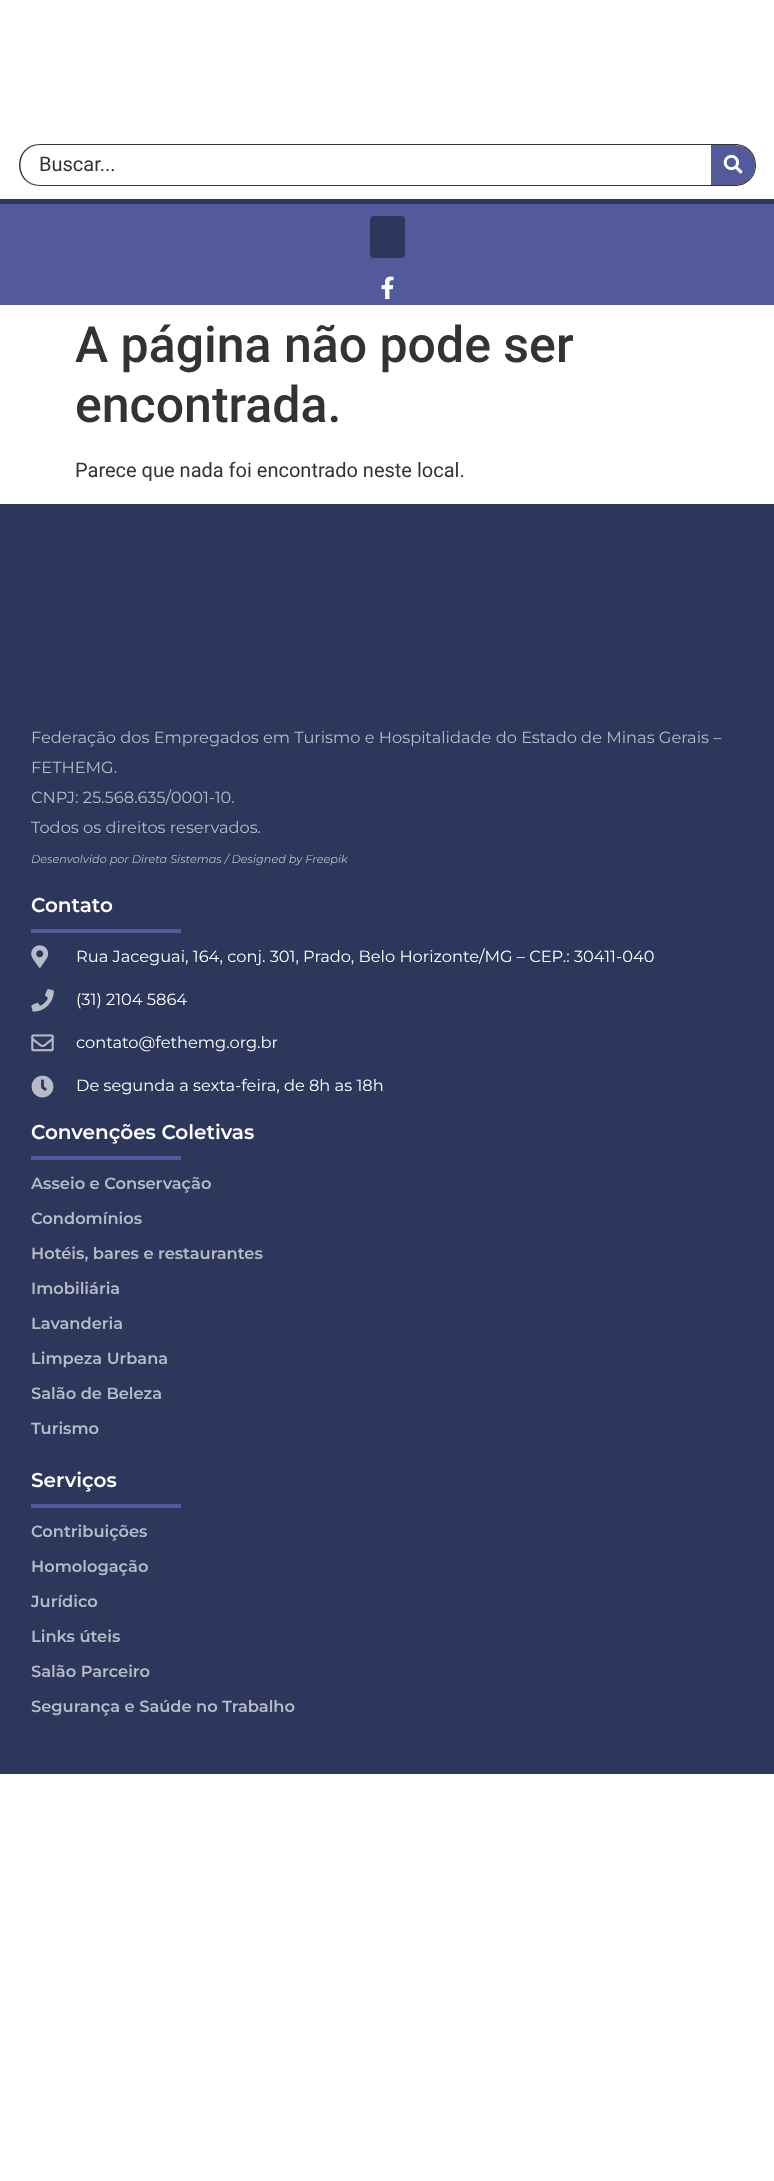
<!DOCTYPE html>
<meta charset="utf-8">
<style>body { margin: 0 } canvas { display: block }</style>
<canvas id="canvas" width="774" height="2181"></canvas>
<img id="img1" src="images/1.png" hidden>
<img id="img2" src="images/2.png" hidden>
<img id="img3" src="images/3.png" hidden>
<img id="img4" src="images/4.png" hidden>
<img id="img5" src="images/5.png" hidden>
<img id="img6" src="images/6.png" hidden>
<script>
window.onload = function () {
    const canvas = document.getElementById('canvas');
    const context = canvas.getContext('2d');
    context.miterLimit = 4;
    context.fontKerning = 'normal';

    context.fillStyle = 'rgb(255, 255, 255)';
    context.fillRect(0, 0, 774, 2181);
    context.fillStyle = 'rgb(51, 51, 51)';
    context.beginPath();
    context.moveTo(40, 144);
    context.lineTo(711, 144);
    context.lineTo(711, 186);
    context.lineTo(40, 186);
    context.bezierCurveTo(12, 186, 12, 144, 40, 144);
    context.closePath();
    context.moveTo(40, 145);
    context.lineTo(711, 145);
    context.lineTo(711, 185);
    context.lineTo(40, 185);
    context.bezierCurveTo(14, 185, 14, 145, 40, 145);
    context.closePath();
    context.fill('evenodd');
    context.fillStyle = 'rgb(82, 90, 155)';
    context.beginPath();
    context.roundRect(711, 145, 44, 40, [0, 20, 20, 0]);
    context.fill();
    context.fillStyle = 'rgb(51, 51, 51)';
    context.beginPath();
    context.moveTo(711, 144);
    context.lineTo(735, 144);
    context.bezierCurveTo(747, 144, 756, 153, 756, 165);
    context.bezierCurveTo(756, 177, 747, 186, 735, 186);
    context.lineTo(711, 186);
    context.closePath();
    context.moveTo(711, 145);
    context.lineTo(735, 145);
    context.bezierCurveTo(746, 145, 755, 154, 755, 165);
    context.bezierCurveTo(755, 176, 746, 185, 735, 185);
    context.lineTo(711, 185);
    context.closePath();
    context.fill('evenodd');
    context.drawImage(document.getElementById('img1'), 723, 154, 20, 20);
    context.fillStyle = 'rgb(82, 90, 155)';
    context.fillRect(0, 204, 774, 101);
    context.fillStyle = 'rgb(44, 55, 91)';
    context.fillRect(0, 199, 774, 5);
    context.beginPath();
    context.roundRect(370, 216, 35, 42, 4);
    context.fill();
    context.drawImage(document.getElementById('img2'), 381, 276, 13, 24);
    context.fillRect(0, 504, 774, 1270);
    context.fillStyle = 'rgb(82, 90, 155)';
    context.fillRect(31, 929, 150, 4);
    context.drawImage(document.getElementById('img3'), 31, 945, 18, 23);
    context.drawImage(document.getElementById('img4'), 31, 989, 23, 23);
    context.drawImage(document.getElementById('img5'), 31, 1034, 23, 18);
    context.drawImage(document.getElementById('img6'), 31, 1075, 23, 23);
    context.fillRect(31, 1156, 150, 4);
    context.fillRect(31, 1504, 150, 4);
    context.font = '20px Roboto';
    context.fillStyle = 'rgb(51, 51, 51)';
    context.fillText('Buscar...', 39, 171);
    context.font = '500 50px Roboto';
    context.fillText('A página não pode ser', 75, 362);
    context.fillText('encontrada.', 75, 422);
    context.font = '20px Roboto';
    context.fillText('Parece que nada foi encontrado neste local.', 75, 477);
    context.font = '16.25px Montserrat';
    context.fillStyle = 'rgb(183, 187, 199)';
    context.fillText('Federação dos Empregados em Turismo e Hospitalidade do Estado de Minas Gerais –', 31, 743);
    context.fillText('FETHEMG.', 31, 773);
    context.fillText('CNPJ: 25.568.635/0001-10.', 31, 803);
    context.fillText('Todos os direitos reservados.', 31, 833);
    context.font = 'italic 11.25px Montserrat';
    context.fillText('Desenvolvido por Direta Sistemas / Designed by Freepik', 31, 863);
    context.font = '600 20px Montserrat';
    context.fillStyle = 'rgb(255, 255, 255)';
    context.fillText('Contato', 31, 912);
    context.font = '16.25px Montserrat';
    context.fillText('Rua Jaceguai, 164, conj. 301, Prado, Belo Horizonte/MG – CEP.: 30411-040', 76, 962);
    context.fillText('(31) 2104 5864', 76, 1005);
    context.fillText('contato@fethemg.org.br', 76, 1048);
    context.fillText('De segunda a sexta-feira, de 8h as 18h', 76, 1091);
    context.font = '600 20px Montserrat';
    context.fillText('Convenções Coletivas', 31, 1139);
    context.font = '600 16.25px Montserrat';
    context.fillStyle = 'rgb(183, 187, 199)';
    context.fillText('Asseio e Conservação', 31, 1189);
    context.fillText('Condomínios', 31, 1224);
    context.fillText('Hotéis, bares e restaurantes', 31, 1259);
    context.fillText('Imobiliária', 31, 1294);
    context.fillText('Lavanderia', 31, 1329);
    context.fillText('Limpeza Urbana', 31, 1364);
    context.fillText('Salão de Beleza', 31, 1399);
    context.fillText('Turismo', 31, 1434);
    context.font = '600 20px Montserrat';
    context.fillStyle = 'rgb(255, 255, 255)';
    context.fillText('Serviços', 31, 1487);
    context.font = '600 16.25px Montserrat';
    context.fillStyle = 'rgb(183, 187, 199)';
    context.fillText('Contribuições', 31, 1537);
    context.fillText('Homologação', 31, 1572);
    context.fillText('Jurídico', 31, 1607);
    context.fillText('Links úteis', 31, 1642);
    context.fillText('Salão Parceiro', 31, 1677);
    context.fillText('Segurança e Saúde no Trabalho', 31, 1712);
};
</script>
